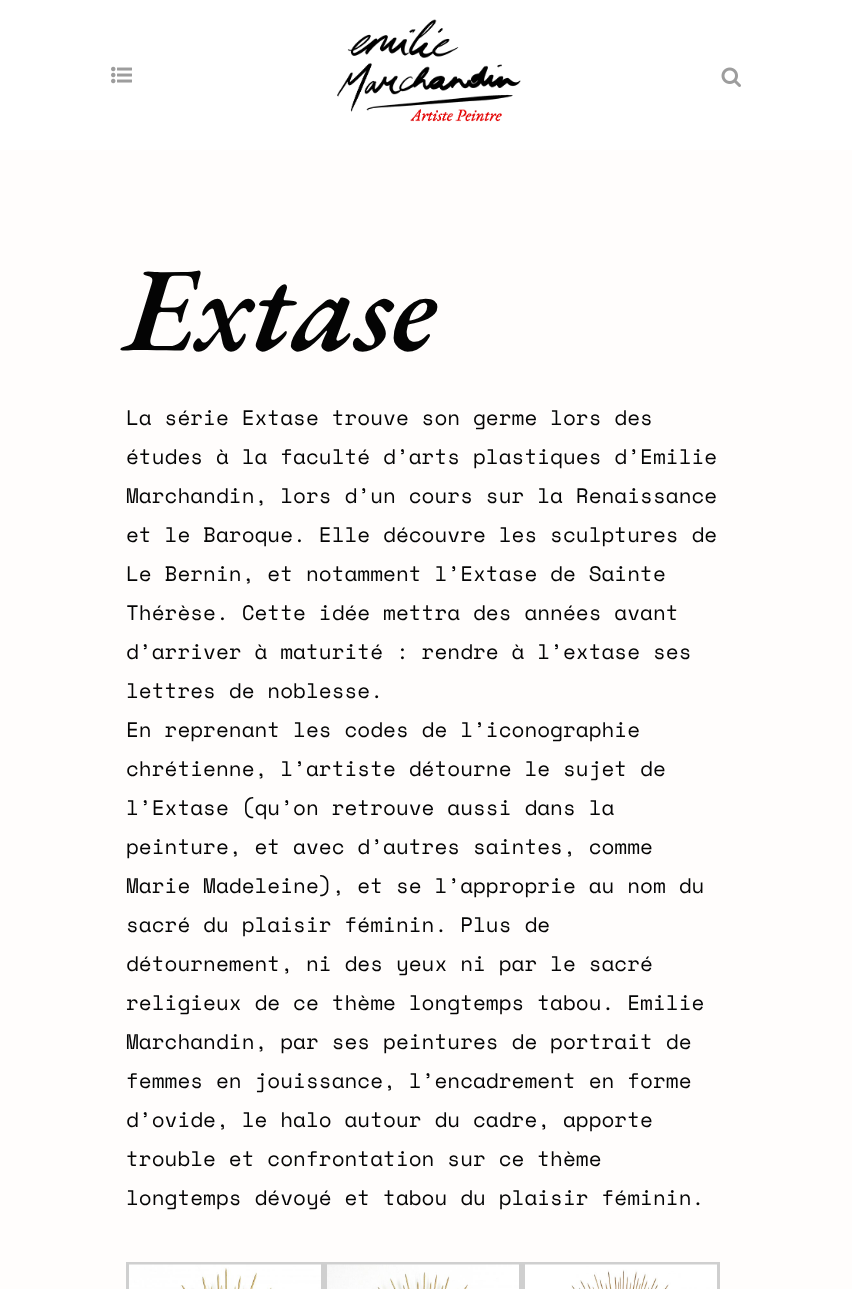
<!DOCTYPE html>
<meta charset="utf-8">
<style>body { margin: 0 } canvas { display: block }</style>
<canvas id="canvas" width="852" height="1289"></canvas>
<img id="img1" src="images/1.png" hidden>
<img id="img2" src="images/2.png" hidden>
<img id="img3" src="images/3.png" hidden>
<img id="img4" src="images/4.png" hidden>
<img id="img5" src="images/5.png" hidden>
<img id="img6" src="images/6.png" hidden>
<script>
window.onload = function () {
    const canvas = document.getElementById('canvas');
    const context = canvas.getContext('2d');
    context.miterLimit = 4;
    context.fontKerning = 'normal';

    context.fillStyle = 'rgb(255, 253, 252)';
    context.fillRect(0, 0, 852, 1289);
    context.fillStyle = 'rgb(255, 255, 255)';
    context.fillRect(0, 0, 852, 150);
    context.drawImage(document.getElementById('img1'), 111, 66, 21, 18);
    context.drawImage(document.getElementById('img2'), 337, 19, 184, 103);
    context.drawImage(document.getElementById('img3'), 721, 67, 20, 20);
    context.strokeStyle = 'rgb(207, 207, 207)';
    context.lineWidth = 3;
    context.strokeRect(127.5, 1263.5, 195, 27);
    context.drawImage(document.getElementById('img4'), 129, 1264, 192, 25);
    context.strokeRect(325.5, 1263.5, 195, 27);
    context.drawImage(document.getElementById('img5'), 327, 1264, 192, 25);
    context.strokeRect(523.5, 1263.5, 195, 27);
    context.drawImage(document.getElementById('img6'), 525, 1264, 192, 25);
    context.font = 'italic 600 120px EB Garamond';
    context.fillStyle = 'rgb(4, 4, 4)';
    context.fillText('Extase', 126, 350);
    context.font = '21px Space Mono';
    context.fillText('La série Extase trouve son germe lors des', 126, 425);
    context.fillText('études à la faculté d’arts plastiques d’Emilie', 126, 464);
    context.fillText('Marchandin, lors d’un cours sur la Renaissance', 126, 503);
    context.fillText('et le Baroque. Elle découvre les sculptures de', 126, 542);
    context.fillText('Le Bernin, et notamment l’Extase de Sainte', 126, 581);
    context.fillText('Thérèse. Cette idée mettra des années avant', 126, 620);
    context.fillText('d’arriver à maturité : rendre à l’extase ses', 126, 659);
    context.fillText('lettres de noblesse.', 126, 698);
    context.fillText('En reprenant les codes de l’iconographie', 126, 737);
    context.fillText('chrétienne, l’artiste détourne le sujet de', 126, 776);
    context.fillText('l’Extase (qu’on retrouve aussi dans la', 126, 815);
    context.fillText('peinture, et avec d’autres saintes, comme', 126, 854);
    context.fillText('Marie Madeleine), et se l’approprie au nom du', 126, 893);
    context.fillText('sacré du plaisir féminin. Plus de', 126, 932);
    context.fillText('détournement, ni des yeux ni par le sacré', 126, 971);
    context.fillText('religieux de ce thème longtemps tabou. Emilie', 126, 1010);
    context.fillText('Marchandin, par ses peintures de portrait de', 126, 1049);
    context.fillText('femmes en jouissance, l’encadrement en forme', 126, 1088);
    context.fillText('d’ovide, le halo autour du cadre, apporte', 126, 1127);
    context.fillText('trouble et confrontation sur ce thème', 126, 1166);
    context.fillText('longtemps dévoyé et tabou du plaisir féminin.', 126, 1205);
};
</script>
